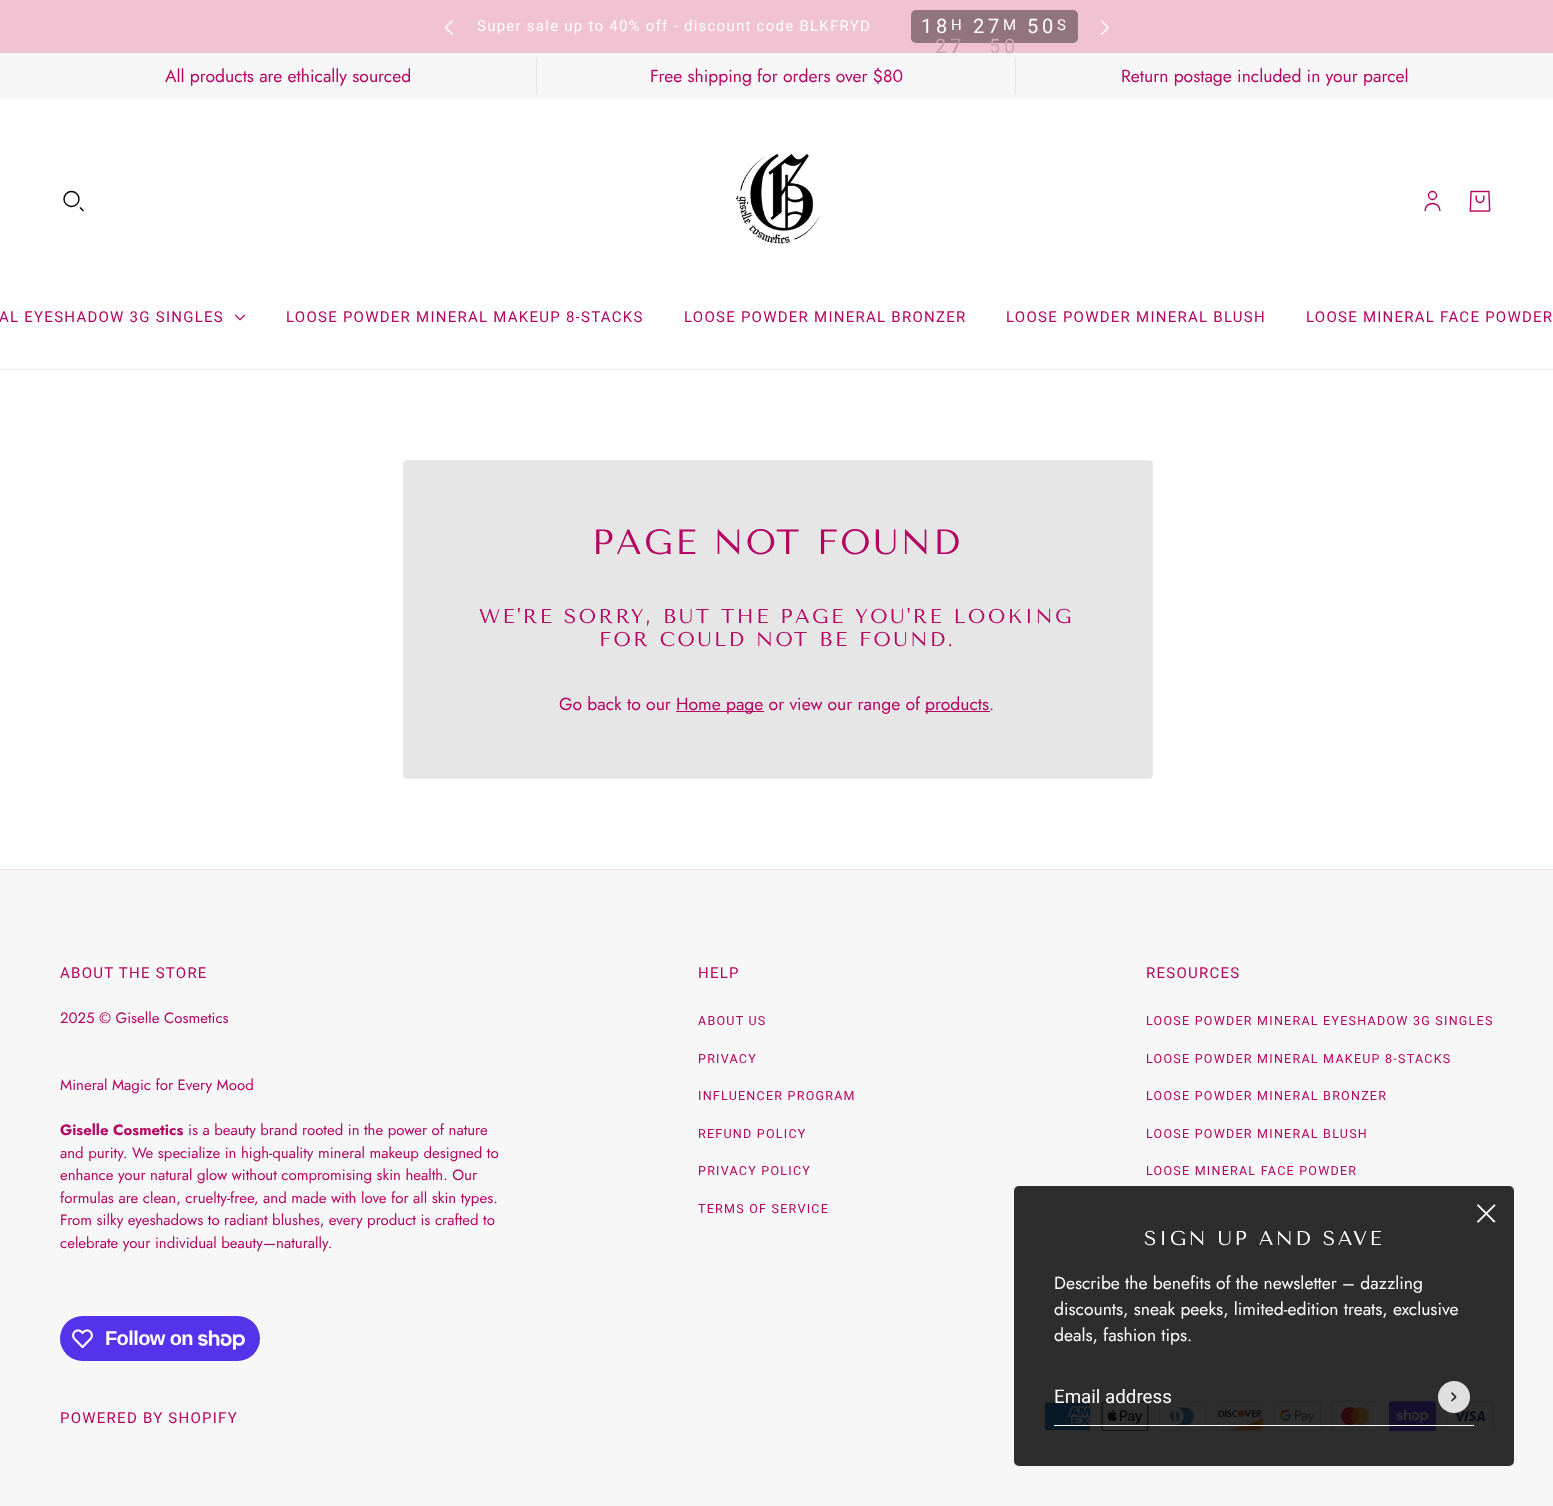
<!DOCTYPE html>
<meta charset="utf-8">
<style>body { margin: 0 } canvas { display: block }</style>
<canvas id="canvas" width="1553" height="1506"></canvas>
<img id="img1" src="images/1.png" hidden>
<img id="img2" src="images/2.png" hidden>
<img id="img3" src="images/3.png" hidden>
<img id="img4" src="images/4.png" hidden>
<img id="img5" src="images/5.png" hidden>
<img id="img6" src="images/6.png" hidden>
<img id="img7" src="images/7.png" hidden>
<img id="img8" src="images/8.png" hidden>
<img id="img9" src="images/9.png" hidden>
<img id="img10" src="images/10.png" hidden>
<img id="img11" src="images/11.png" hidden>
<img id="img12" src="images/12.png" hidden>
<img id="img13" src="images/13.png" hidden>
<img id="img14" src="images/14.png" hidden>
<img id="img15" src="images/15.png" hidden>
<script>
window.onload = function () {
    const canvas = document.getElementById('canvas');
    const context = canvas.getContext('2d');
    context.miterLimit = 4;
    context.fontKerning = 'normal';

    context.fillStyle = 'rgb(255, 255, 255)';
    context.fillRect(0, 0, 1553, 1506);
    context.fillStyle = 'rgb(241, 194, 210)';
    context.fillRect(0, 0, 1553, 53);
    context.drawImage(document.getElementById('img1'), 444, 20, 9, 15);
    context.fillStyle = 'rgb(145, 116, 126)';
    context.beginPath();
    context.roundRect(911, 10, 167, 33, 5);
    context.fill();
    context.drawImage(document.getElementById('img2'), 1101, 20, 9, 15);
    context.fillStyle = 'rgb(247, 247, 247)';
    context.fillRect(0, 53, 1553, 46);
    context.fillStyle = 'rgb(240, 223, 232)';
    context.fillRect(536, 58, 1, 36);
    context.fillRect(1015, 58, 1, 36);
    context.beginPath();
    context.arc(71.5, 199, 7.5, 0, 2 * Math.PI);
    context.strokeStyle = 'rgb(0, 0, 0)';
    context.lineWidth = 1.4;
    context.stroke();
    context.beginPath();
    context.moveTo(80, 207.5);
    context.lineTo(83.5, 211);
    context.stroke();
    context.drawImage(document.getElementById('img3'), 735, 153, 85, 91);
    context.beginPath();
    context.arc(1432.5, 195.5, 4, 0, 2 * Math.PI);
    context.strokeStyle = 'rgb(181, 3, 97)';
    context.stroke();
    context.beginPath();
    context.moveTo(1425, 211);
    context.bezierCurveTo(1425, 201, 1440, 201, 1440, 211);
    context.stroke();
    context.drawImage(document.getElementById('img4'), 1469, 190, 22, 22);
    context.drawImage(document.getElementById('img5'), 234, 314, 12, 7);
    context.fillStyle = 'rgb(248, 230, 239)';
    context.fillRect(0, 369, 1553, 1);
    context.fillStyle = 'rgb(230, 230, 230)';
    context.beginPath();
    context.roundRect(403.5, 460.5, 749, 318, 3.5);
    context.fill();
    context.strokeStyle = 'rgb(234, 234, 234)';
    context.lineWidth = 1;
    context.stroke();
    context.fillStyle = 'rgb(181, 3, 97)';
    context.fillRect(676, 711, 88, 1);
    context.fillRect(925, 711, 65, 1);
    context.fillStyle = 'rgb(247, 247, 247)';
    context.fillRect(0, 870, 1553, 636);
    context.fillStyle = 'rgb(240, 223, 232)';
    context.fillRect(0, 869, 1553, 1);
    context.fillStyle = 'rgb(84, 51, 235)';
    context.beginPath();
    context.roundRect(60, 1316, 200, 45, 22.5);
    context.fill();
    context.drawImage(document.getElementById('img6'), 72, 1329, 21, 20);
    context.drawImage(document.getElementById('img7'), 198, 1330, 47, 20);
    context.drawImage(document.getElementById('img8'), 1044, 1401, 47, 30);
    context.drawImage(document.getElementById('img9'), 1101, 1401, 48, 30);
    context.drawImage(document.getElementById('img10'), 1159, 1401, 47, 30);
    context.drawImage(document.getElementById('img11'), 1216, 1401, 48, 30);
    context.drawImage(document.getElementById('img12'), 1274, 1401, 47, 30);
    context.drawImage(document.getElementById('img13'), 1331, 1401, 48, 30);
    context.drawImage(document.getElementById('img14'), 1389, 1401, 47, 30);
    context.drawImage(document.getElementById('img15'), 1446, 1401, 48, 30);
    context.fillStyle = 'rgba(9, 9, 9, 0.85)';
    context.beginPath();
    context.roundRect(1014, 1186, 500, 280, 5);
    context.fill();
    context.fillStyle = 'rgb(255, 255, 255)';
    context.beginPath();
    context.moveTo(1478.5, 1204.5);
    context.lineTo(1495.5, 1221.5);
    context.lineTo(1495, 1222);
    context.bezierCurveTo(1494, 1223.5, 1492.5, 1221, 1491, 1219.5);
    context.lineTo(1477, 1205.5);
    context.bezierCurveTo(1477, 1205, 1478, 1204, 1478.5, 1204.5);
    context.closePath();
    context.fill();
    context.beginPath();
    context.moveTo(1477.5, 1221);
    context.lineTo(1494, 1204.5);
    context.lineTo(1495, 1204.5);
    context.bezierCurveTo(1496.5, 1205.5, 1494, 1207, 1492.5, 1208.5);
    context.lineTo(1478.5, 1222.5);
    context.bezierCurveTo(1477.5, 1223, 1476.5, 1221.5, 1477.5, 1221);
    context.closePath();
    context.fill();
    context.fillRect(1054, 1425, 420, 1);
    context.fillStyle = 'rgba(255, 255, 255, 0.85)';
    context.beginPath();
    context.arc(1454, 1397, 16, 0, 2 * Math.PI);
    context.fill();
    context.fillStyle = 'rgb(36, 36, 36)';
    context.beginPath();
    context.moveTo(1451, 1400.5);
    context.lineTo(1455.5, 1396);
    context.lineTo(1456.5, 1397.5);
    context.lineTo(1452, 1401.5);
    context.closePath();
    context.fill();
    context.beginPath();
    context.moveTo(1452, 1392);
    context.lineTo(1456.5, 1396.5);
    context.lineTo(1455.5, 1397.5);
    context.lineTo(1451, 1393.5);
    context.closePath();
    context.fill();
    context.letterSpacing = '1.25px';
    context.font = '15px Roboto';
    context.fillStyle = 'rgb(255, 255, 255)';
    context.fillText('Super sale up to 40% off - discount code BLKFRYD', 477, 31);
    context.font = '20px Roboto';
    context.fillText('1', 921, 33);
    context.fillText('8', 936, 33);
    context.font = '15px Roboto';
    context.fillText('H', 951, 30);
    context.font = '20px Roboto';
    context.fillText('2', 973, 33);
    context.fillText('7', 988, 33);
    context.font = '15px Roboto';
    context.fillText('M', 1003, 30);
    context.font = '20px Roboto';
    context.fillText('5', 1027, 33);
    context.fillText('0', 1042, 33);
    context.font = '15px Roboto';
    context.fillText('S', 1057, 30);
    context.font = '20px Roboto';
    context.fillStyle = 'rgb(202, 163, 176)';
    context.fillText('2', 935, 53);
    context.fillStyle = 'rgb(187, 150, 163)';
    context.fillText('7', 950, 53);
    context.save();
    context.beginPath();
    context.rect(476, 0, 602, 53);
    context.clip();
    context.fillStyle = 'rgb(208, 167, 181)';
    context.fillText('5', 989, 53);
    context.restore();
    context.fillStyle = 'rgb(208, 167, 181)';
    context.fillText('0', 1004, 53);
    context.letterSpacing = '0px';
    context.font = '17.5px Jost';
    context.fillStyle = 'rgb(181, 3, 97)';
    context.fillText('All products are ethically sourced', 165, 82);
    context.fillText('Free shipping for orders over $80', 650, 82);
    context.fillText('Return postage included in your parcel', 1121, 82);
    context.letterSpacing = '1.25px';
    context.font = '15px Roboto';
    context.fillText('AL EYESHADOW 3G SINGLES', -1, 322);
    context.fillText('LOOSE POWDER MINERAL MAKEUP 8-STACKS', 286, 322);
    context.fillText('LOOSE POWDER MINERAL BRONZER', 684, 322);
    context.fillText('LOOSE POWDER MINERAL BLUSH', 1006, 322);
    context.fillText('LOOSE MINERAL FACE POWDER', 1306, 322);
    context.letterSpacing = '2.5px';
    context.font = '35px Tenor Sans';
    context.fillText('PAGE NOT FOUND', 592, 554);
    context.font = '20px Tenor Sans';
    context.fillText('WE\'RE SORRY, BUT THE PAGE YOU\'RE LOOKING', 479, 623);
    context.fillText('FOR COULD NOT BE FOUND.', 599, 646);
    context.letterSpacing = '0px';
    context.font = '17.5px Jost';
    context.fillText('Go back to our', 559, 710);
    context.fillText('Home page or view our range of', 676, 710);
    context.fillText('products.', 925, 710);
    context.letterSpacing = '1.25px';
    context.font = '15px Roboto';
    context.fillText('ABOUT THE STORE', 60, 978);
    context.letterSpacing = '0px';
    context.font = '15px Jost';
    context.fillText('2025 © Giselle Cosmetics', 60, 1023);
    context.fillText('Mineral Magic for Every Mood', 60, 1090);
    context.font = 'bold 15px Jost';
    context.fillText('Giselle Cosmetics', 60, 1135);
    context.font = '15px Jost';
    context.fillText('is a beauty brand rooted in the power of nature', 188, 1135);
    context.fillText('and purity. We specialize in high-quality mineral makeup designed to', 60, 1158);
    context.fillText('enhance your natural glow without compromising skin health. Our', 60, 1180);
    context.fillText('formulas are clean, cruelty-free, and made with love for all skin types.', 60, 1203);
    context.fillText('From silky eyeshadows to radiant blushes, every product is crafted to', 60, 1225);
    context.fillText('celebrate your individual beauty—naturally.', 60, 1248);
    context.letterSpacing = '-0.6px';
    context.font = 'bold 20px Liberation Sans';
    context.fillStyle = 'rgb(255, 255, 255)';
    context.fillText('Follow on', 105, 1345);
    context.letterSpacing = '1.25px';
    context.font = '15px Roboto';
    context.fillStyle = 'rgb(181, 3, 97)';
    context.fillText('HELP', 698, 978);
    context.font = '12.5px Roboto';
    context.fillText('ABOUT US', 698, 1025);
    context.fillText('PRIVACY', 698, 1063);
    context.fillText('INFLUENCER PROGRAM', 698, 1100);
    context.fillText('REFUND POLICY', 698, 1138);
    context.fillText('PRIVACY POLICY', 698, 1175);
    context.fillText('TERMS OF SERVICE', 698, 1213);
    context.font = '15px Roboto';
    context.fillText('RESOURCES', 1146, 978);
    context.font = '12.5px Roboto';
    context.fillText('LOOSE POWDER MINERAL EYESHADOW 3G SINGLES', 1146, 1025);
    context.fillText('LOOSE POWDER MINERAL MAKEUP 8-STACKS', 1146, 1063);
    context.fillText('LOOSE POWDER MINERAL BRONZER', 1146, 1100);
    context.fillText('LOOSE POWDER MINERAL BLUSH', 1146, 1138);
    context.fillText('LOOSE MINERAL FACE POWDER', 1146, 1175);
    context.font = '15px Roboto';
    context.fillText('POWERED BY SHOPIFY', 60, 1423);
    context.letterSpacing = '2.5px';
    context.font = '20px Tenor Sans';
    context.fillStyle = 'rgb(255, 255, 255)';
    context.fillText('SIGN UP AND SAVE', 1144, 1245);
    context.letterSpacing = '0px';
    context.font = '17.5px Jost';
    context.fillText('Describe the benefits of the newsletter – dazzling', 1054, 1289);
    context.fillText('discounts, sneak peeks, limited-edition treats, exclusive', 1054, 1315);
    context.fillText('deals, fashion tips.', 1054, 1341);
    context.font = '18.75px Roboto';
    context.fillText('Email address', 1054, 1403);
};
</script>
